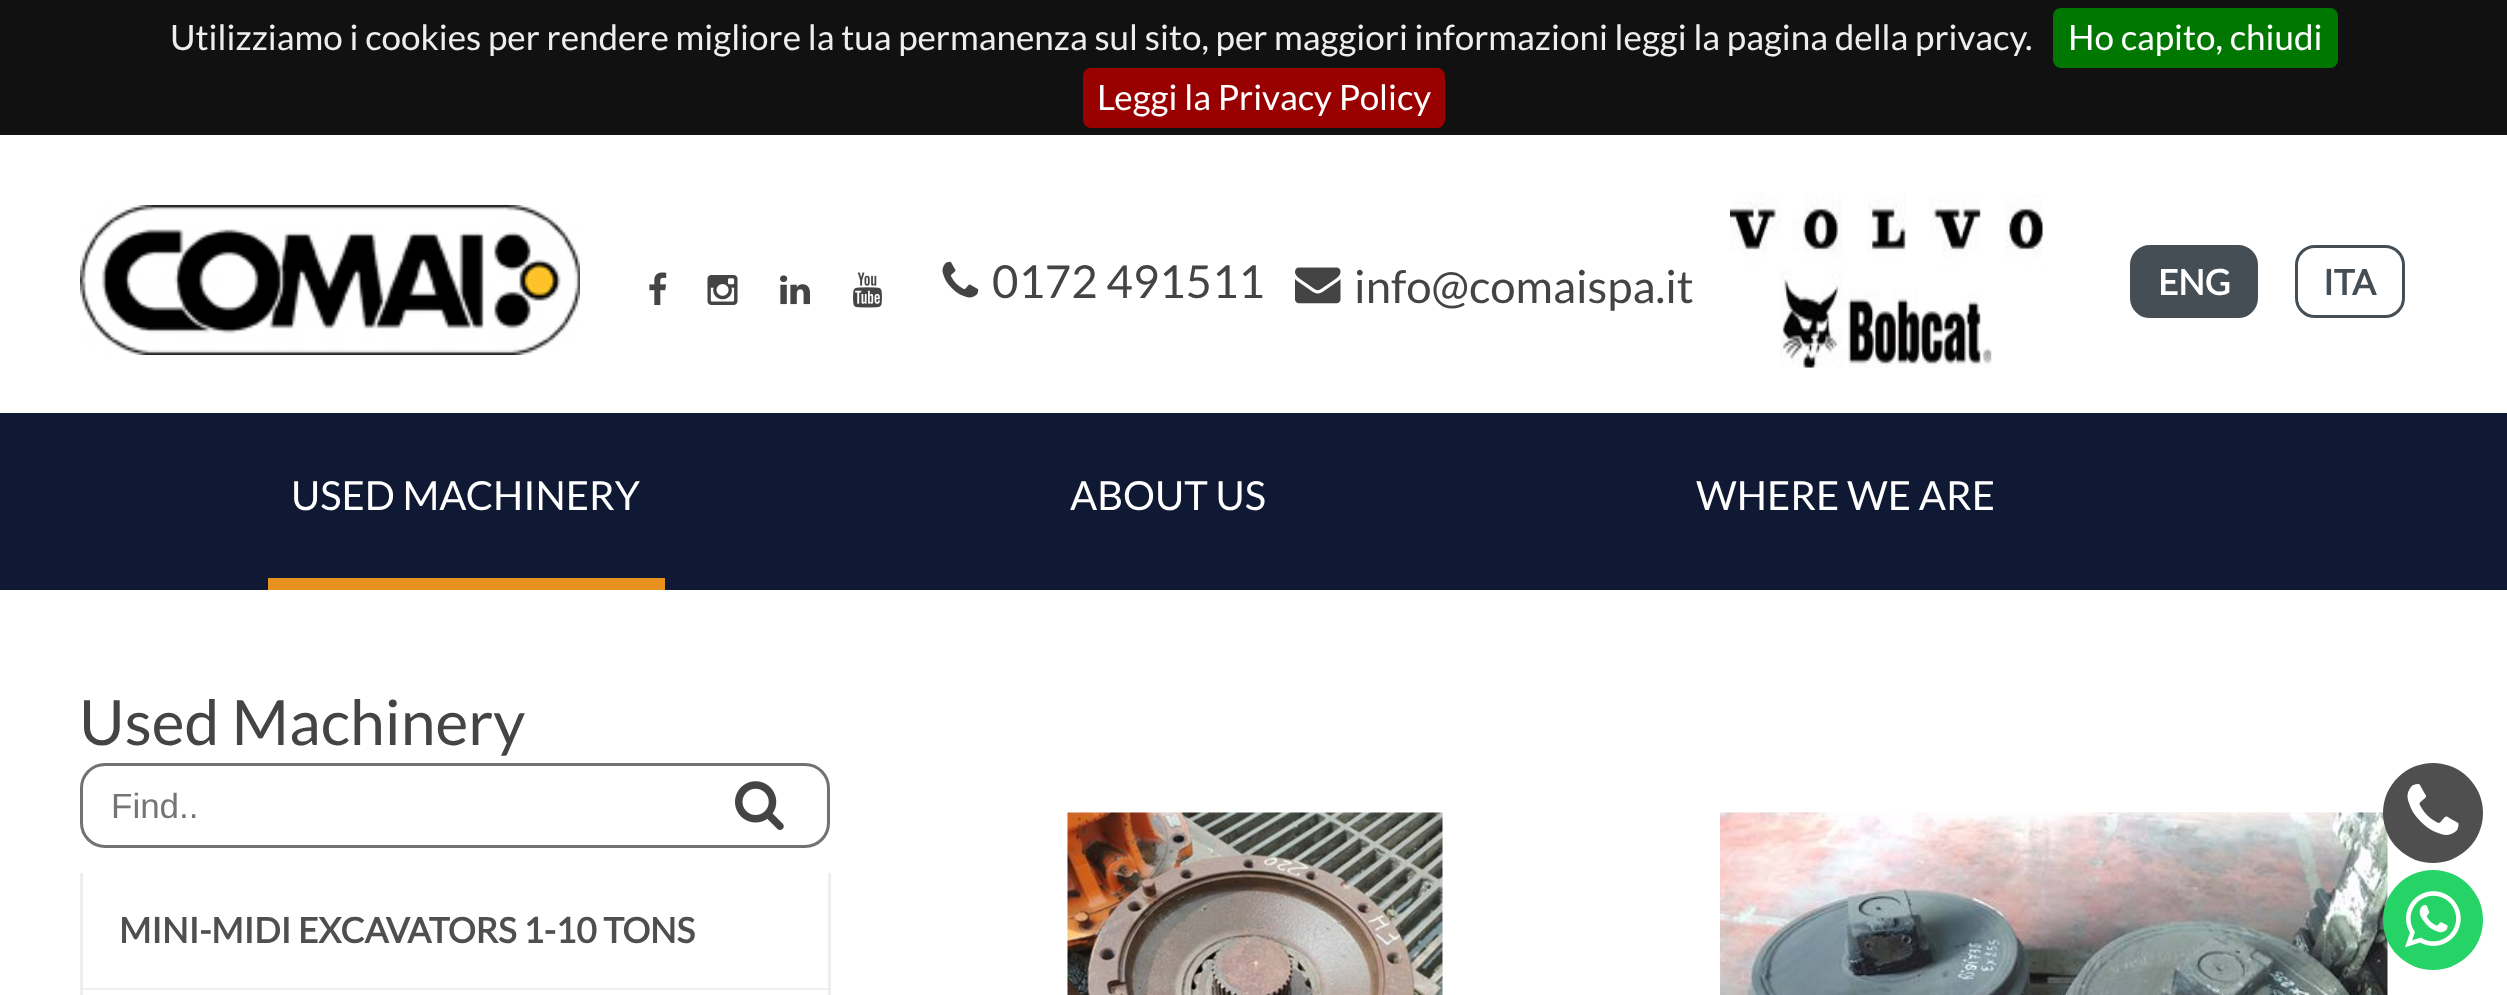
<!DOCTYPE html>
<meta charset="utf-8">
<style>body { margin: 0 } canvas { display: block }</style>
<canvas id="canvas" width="2507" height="995"></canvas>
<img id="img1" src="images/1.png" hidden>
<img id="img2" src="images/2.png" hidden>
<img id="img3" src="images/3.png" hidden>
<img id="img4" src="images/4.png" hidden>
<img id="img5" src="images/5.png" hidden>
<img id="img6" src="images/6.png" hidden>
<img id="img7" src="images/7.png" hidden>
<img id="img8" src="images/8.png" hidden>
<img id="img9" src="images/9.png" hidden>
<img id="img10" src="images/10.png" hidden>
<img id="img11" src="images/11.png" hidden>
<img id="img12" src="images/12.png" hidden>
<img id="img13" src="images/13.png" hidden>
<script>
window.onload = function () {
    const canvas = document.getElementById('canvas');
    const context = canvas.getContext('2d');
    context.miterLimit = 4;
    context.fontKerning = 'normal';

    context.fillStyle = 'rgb(255, 255, 255)';
    context.fillRect(0, 0, 2507, 995);
    context.fillStyle = 'rgb(17, 17, 17)';
    context.fillRect(0, 0, 2507, 135);
    context.fillStyle = 'rgb(0, 119, 0)';
    context.beginPath();
    context.roundRect(2053, 8, 285, 60, 8);
    context.fill();
    context.fillStyle = 'rgb(153, 0, 0)';
    context.beginPath();
    context.roundRect(1083, 68, 362, 60, 8);
    context.fill();
    context.drawImage(document.getElementById('img1'), 80, 205, 500, 150);
    context.drawImage(document.getElementById('img2'), 649, 272, 18, 33);
    context.drawImage(document.getElementById('img3'), 707, 275, 31, 30);
    context.drawImage(document.getElementById('img4'), 780, 275, 30, 30);
    context.drawImage(document.getElementById('img5'), 853, 272, 29, 36);
    context.drawImage(document.getElementById('img6'), 942, 261, 37, 37);
    context.drawImage(document.getElementById('img7'), 1295, 267, 46, 37);
    context.drawImage(document.getElementById('img8'), 1730, 193, 313, 175);
    context.fillStyle = 'rgb(69, 78, 85)';
    context.beginPath();
    context.roundRect(2131.5, 246.5, 125, 70, 18.5);
    context.fill();
    context.strokeStyle = 'rgb(69, 78, 85)';
    context.lineWidth = 3;
    context.stroke();
    context.beginPath();
    context.roundRect(2296.5, 246.5, 107, 70, 18.5);
    context.stroke();
    context.fillStyle = 'rgb(16, 25, 51)';
    context.fillRect(0, 413, 2507, 177);
    context.fillStyle = 'rgb(233, 145, 30)';
    context.fillRect(268, 578, 397, 12);
    context.beginPath();
    context.roundRect(81.5, 764.5, 747, 82, 23.5);
    context.strokeStyle = 'rgb(114, 114, 114)';
    context.stroke();
    context.drawImage(document.getElementById('img9'), 735, 781, 49, 49);
    context.fillStyle = 'rgb(238, 238, 238)';
    context.fillRect(828, 873, 3, 122);
    context.fillRect(80, 873, 3, 122);
    context.fillRect(83, 988, 745, 2);
    context.drawImage(document.getElementById('img10'), 1067, 812, 376, 183);
    context.drawImage(document.getElementById('img11'), 1720, 812, 668, 183);
    context.fillStyle = 'rgb(79, 79, 79)';
    context.beginPath();
    context.arc(2433, 813, 50, 0, 2 * Math.PI);
    context.fill();
    context.drawImage(document.getElementById('img12'), 2407, 783, 52, 52);
    context.fillStyle = 'rgb(37, 211, 102)';
    context.beginPath();
    context.arc(2433, 920, 50, 0, 2 * Math.PI);
    context.fill();
    context.drawImage(document.getElementById('img13'), 2405, 891, 56, 57);
    context.font = '35px Lato';
    context.fillStyle = 'rgb(238, 238, 238)';
    context.fillText('Utilizziamo i cookies per rendere migliore la tua permanenza sul sito, per maggiori informazioni leggi la pagina della privacy.', 170, 50);
    context.fillStyle = 'rgb(255, 255, 255)';
    context.fillText('Ho capito, chiudi', 2068, 50);
    context.fillText('Leggi la Privacy Policy', 1097, 110);
    context.font = '45.5px Lato';
    context.fillStyle = 'rgb(68, 68, 68)';
    context.fillText('0172 491511', 992, 298);
    context.fillText('info@comaispa.it', 1354, 303);
    context.font = 'bold 35px Lato';
    context.fillStyle = 'rgb(255, 255, 255)';
    context.fillText('ENG', 2158, 295);
    context.fillStyle = 'rgb(69, 78, 85)';
    context.fillText('ITA', 2323, 295);
    context.font = '40px Lato';
    context.fillStyle = 'rgb(255, 255, 255)';
    context.fillText('USED MACHINERY', 291, 510);
    context.fillText('ABOUT US', 1070, 510);
    context.fillText('WHERE WE ARE', 1696, 510);
    context.font = '62.5px Lato';
    context.fillStyle = 'rgb(68, 68, 68)';
    context.fillText('Used Machinery', 79, 745);
    context.font = '35px Liberation Sans';
    context.fillStyle = 'rgb(117, 117, 117)';
    context.fillText('Find..', 111, 818);
    context.font = 'bold 35px Lato';
    context.fillStyle = 'rgb(79, 79, 79)';
    context.fillText('MINI-MIDI EXCAVATORS 1-10 TONS', 119, 943);
};
</script>
